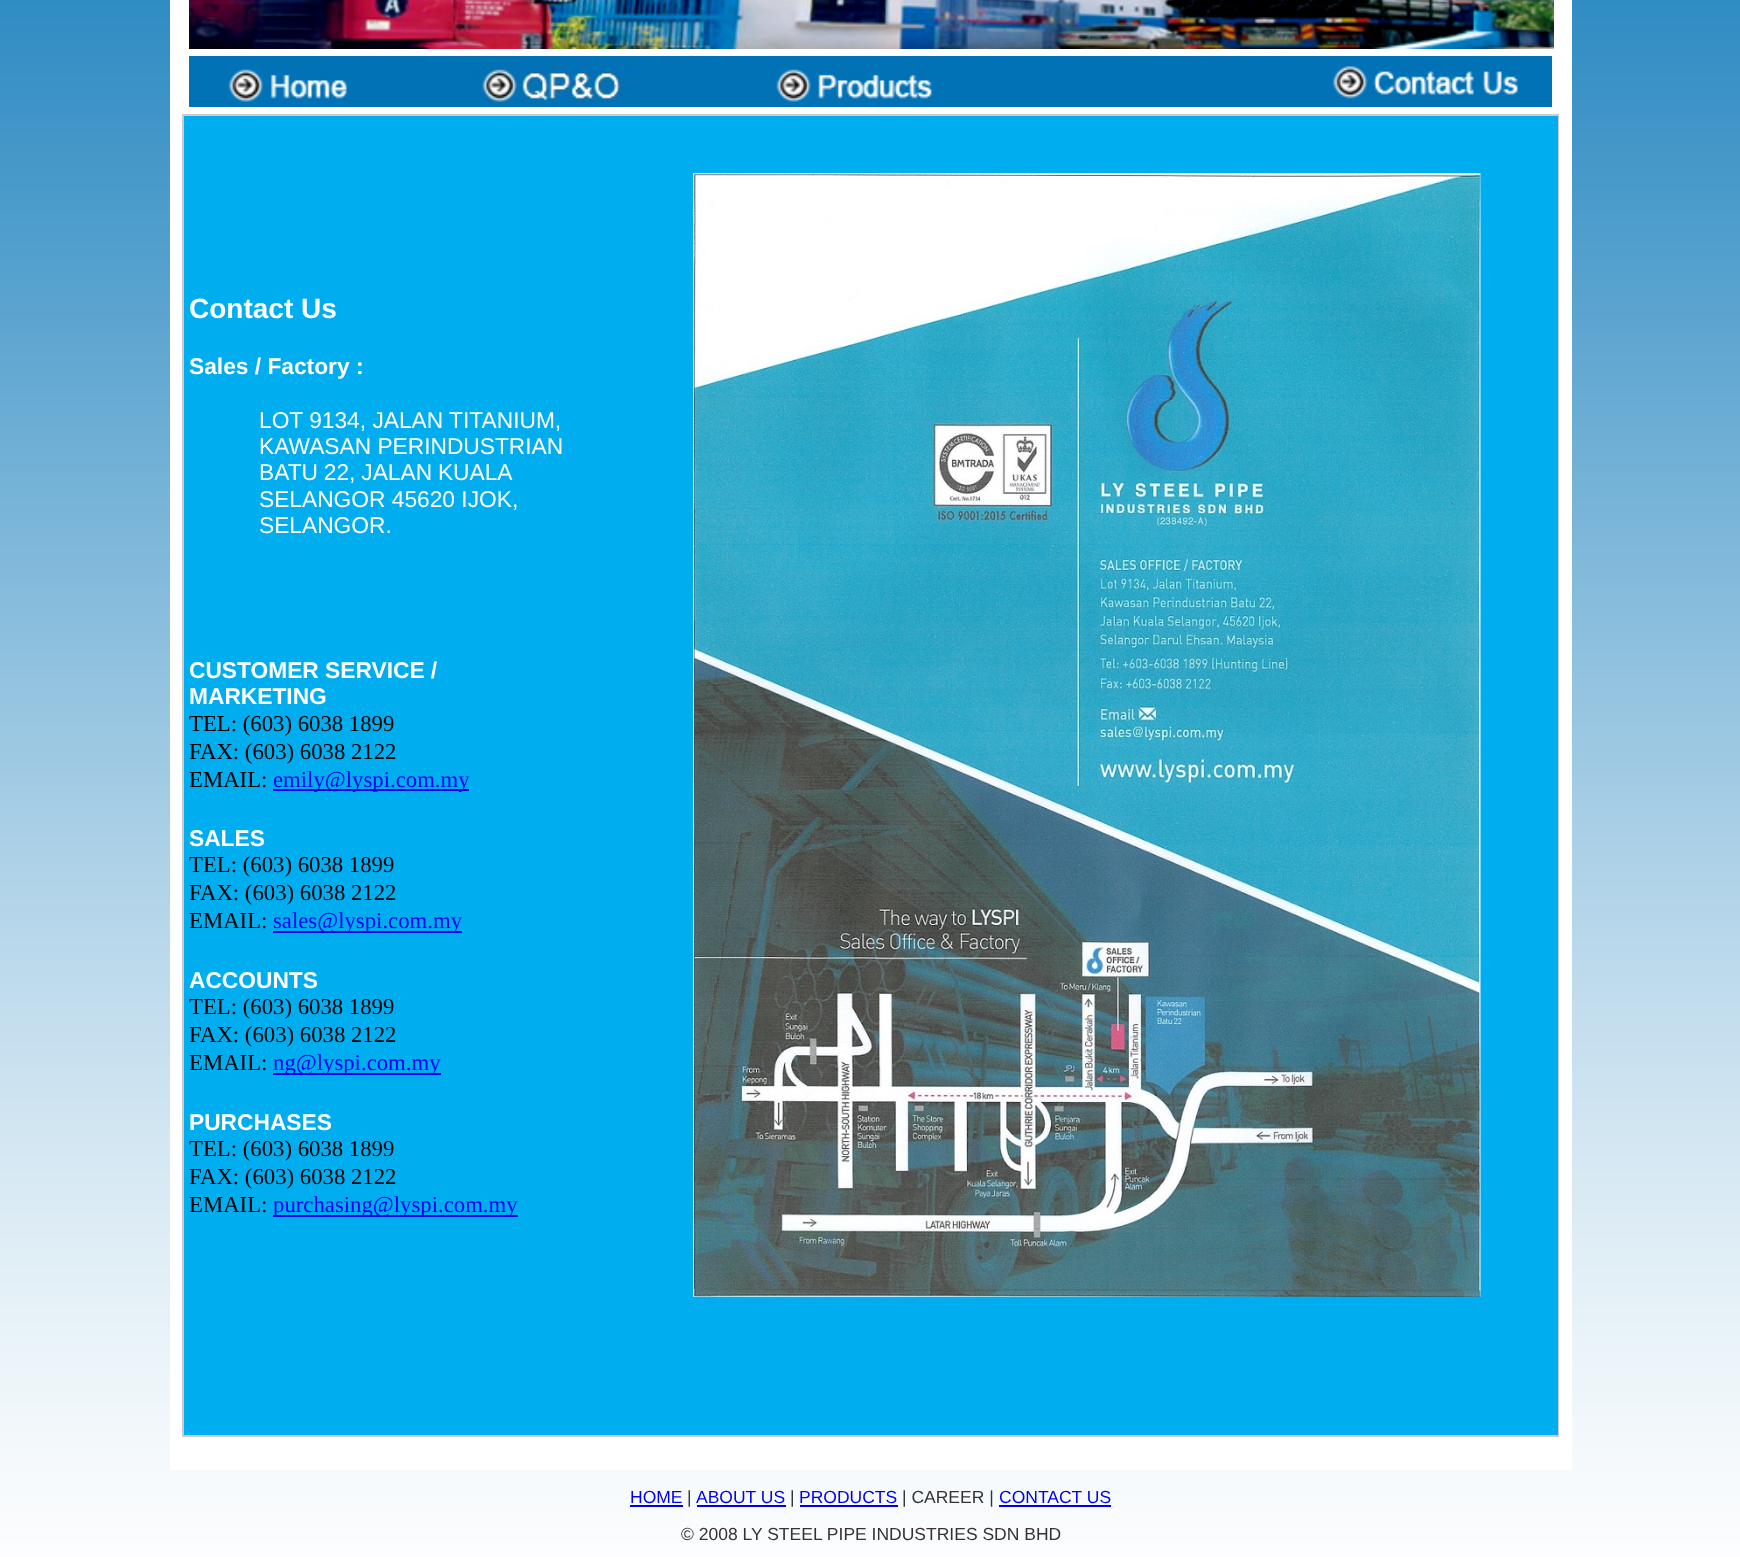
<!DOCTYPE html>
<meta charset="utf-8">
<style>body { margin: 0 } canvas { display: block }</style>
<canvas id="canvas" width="1740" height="1557"></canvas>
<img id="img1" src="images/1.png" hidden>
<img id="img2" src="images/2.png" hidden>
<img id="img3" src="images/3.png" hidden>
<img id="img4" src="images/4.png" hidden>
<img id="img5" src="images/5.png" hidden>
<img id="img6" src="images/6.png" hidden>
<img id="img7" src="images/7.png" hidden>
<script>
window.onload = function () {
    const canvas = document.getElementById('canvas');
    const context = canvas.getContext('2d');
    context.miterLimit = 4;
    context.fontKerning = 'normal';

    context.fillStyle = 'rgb(255, 255, 255)';
    context.fillRect(0, 0, 1740, 1557);
    context.drawImage(document.getElementById('img1'), 0, 0, 1740, 1557);
    context.fillRect(170, 0, 1402, 1470);
    context.drawImage(document.getElementById('img2'), 189, 0, 1365, 49);
    context.fillStyle = 'rgb(1, 114, 182)';
    context.fillRect(189, 56, 1363, 51);
    context.drawImage(document.getElementById('img3'), 228, 69, 119, 33);
    context.drawImage(document.getElementById('img4'), 470, 59, 165, 44);
    context.drawImage(document.getElementById('img5'), 776, 69, 157, 33);
    context.drawImage(document.getElementById('img6'), 1333, 66, 185, 33);
    context.fillStyle = 'rgb(204, 204, 204)';
    context.fillRect(182, 114, 1377, 1323);
    context.fillStyle = 'rgb(0, 173, 239)';
    context.fillRect(184, 116, 1374, 1319);
    context.fillStyle = 'rgb(0, 0, 238)';
    context.fillRect(273, 789, 196, 2);
    context.fillRect(273, 931, 189, 2);
    context.fillRect(273, 1073, 168, 2);
    context.fillRect(273, 1215, 245, 2);
    context.drawImage(document.getElementById('img7'), 693, 173, 788, 1124);
    context.fillRect(630, 1505, 53, 2);
    context.fillRect(697, 1505, 89, 2);
    context.fillRect(800, 1505, 98, 2);
    context.fillRect(999, 1505, 112, 2);
    context.font = 'bold 28px Liberation Sans';
    context.fillStyle = 'rgb(255, 255, 255)';
    context.fillText('Contact Us', 189, 318);
    context.font = 'bold 22.75px Liberation Sans';
    context.fillText('Sales / Factory :', 189, 374);
    context.font = '22.75px Liberation Sans';
    context.fillText('LOT 9134, JALAN TITANIUM,', 259, 428);
    context.fillText('KAWASAN PERINDUSTRIAN', 259, 454);
    context.wordSpacing = '-0.5px';
    context.fillText('BATU 22, JALAN KUALA', 259, 480);
    context.wordSpacing = '0px';
    context.fillText('SELANGOR 45620 IJOK,', 259, 507);
    context.fillText('SELANGOR.', 259, 533);
    context.font = 'bold 22.75px Liberation Sans';
    context.fillText('CUSTOMER SERVICE /', 189, 678);
    context.fillText('MARKETING', 189, 704);
    context.font = '22.75px Liberation Serif';
    context.fillStyle = 'rgb(0, 0, 0)';
    context.fillText('TEL: (603) 6038 1899', 189, 731);
    context.fillText('FAX: (603) 6038 2122', 189, 759);
    context.fillText('EMAIL:', 189, 787);
    context.fillStyle = 'rgb(0, 0, 238)';
    context.fillText('emily@lyspi.com.my', 273, 787);
    context.font = 'bold 22.75px Liberation Sans';
    context.fillStyle = 'rgb(255, 255, 255)';
    context.fillText('SALES', 189, 846);
    context.font = '22.75px Liberation Serif';
    context.fillStyle = 'rgb(0, 0, 0)';
    context.fillText('TEL: (603) 6038 1899', 189, 872);
    context.fillText('FAX: (603) 6038 2122', 189, 900);
    context.fillText('EMAIL:', 189, 928);
    context.fillStyle = 'rgb(0, 0, 238)';
    context.fillText('sales@lyspi.com.my', 273, 928);
    context.font = 'bold 22.75px Liberation Sans';
    context.fillStyle = 'rgb(255, 255, 255)';
    context.fillText('ACCOUNTS', 189, 988);
    context.font = '22.75px Liberation Serif';
    context.fillStyle = 'rgb(0, 0, 0)';
    context.fillText('TEL: (603) 6038 1899', 189, 1014);
    context.fillText('FAX: (603) 6038 2122', 189, 1042);
    context.fillText('EMAIL:', 189, 1070);
    context.fillStyle = 'rgb(0, 0, 238)';
    context.fillText('ng@lyspi.com.my', 273, 1070);
    context.font = 'bold 22.75px Liberation Sans';
    context.fillStyle = 'rgb(255, 255, 255)';
    context.fillText('PURCHASES', 189, 1130);
    context.font = '22.75px Liberation Serif';
    context.fillStyle = 'rgb(0, 0, 0)';
    context.fillText('TEL: (603) 6038 1899', 189, 1156);
    context.fillText('FAX: (603) 6038 2122', 189, 1184);
    context.fillText('EMAIL:', 189, 1212);
    context.fillStyle = 'rgb(0, 0, 238)';
    context.fillText('purchasing@lyspi.com.my', 273, 1212);
    context.font = '17.5px Liberation Sans';
    context.fillText('HOME', 630, 1503);
    context.fillStyle = 'rgb(51, 51, 51)';
    context.fillText('|', 687, 1503);
    context.fillStyle = 'rgb(0, 0, 238)';
    context.fillText('ABOUT US', 696, 1503);
    context.fillStyle = 'rgb(51, 51, 51)';
    context.fillText('|', 790, 1503);
    context.fillStyle = 'rgb(0, 0, 238)';
    context.fillText('PRODUCTS', 799, 1503);
    context.fillStyle = 'rgb(51, 51, 51)';
    context.fillText('| CAREER |', 902, 1503);
    context.fillStyle = 'rgb(0, 0, 238)';
    context.fillText('CONTACT US', 999, 1503);
    context.fillStyle = 'rgb(51, 51, 51)';
    context.fillText('© 2008 LY STEEL PIPE INDUSTRIES SDN BHD', 681, 1540);
};
</script>
